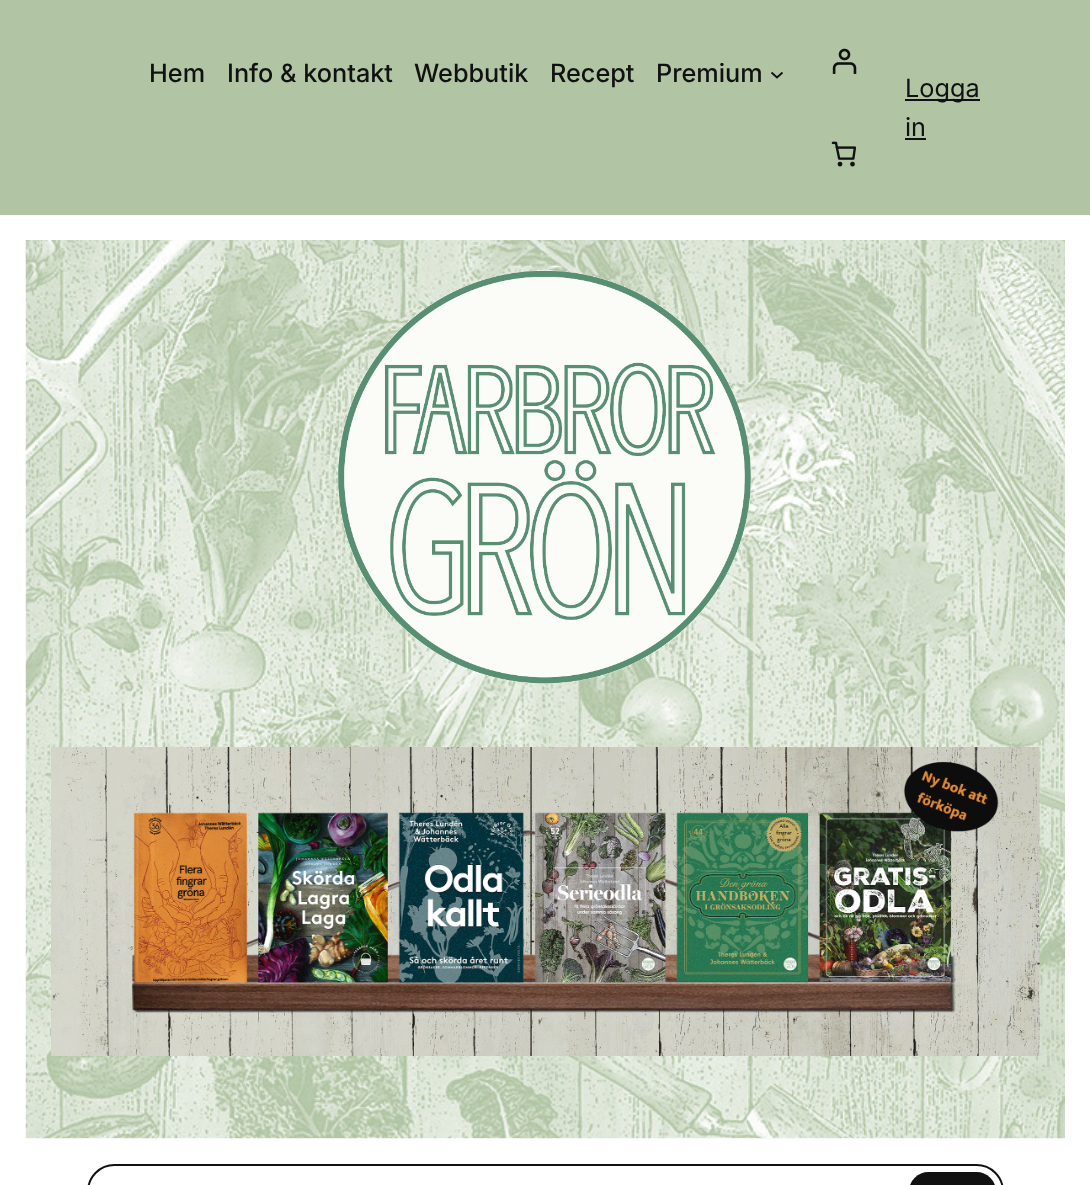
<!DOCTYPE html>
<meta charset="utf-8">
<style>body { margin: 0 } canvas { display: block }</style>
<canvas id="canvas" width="1090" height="1185"></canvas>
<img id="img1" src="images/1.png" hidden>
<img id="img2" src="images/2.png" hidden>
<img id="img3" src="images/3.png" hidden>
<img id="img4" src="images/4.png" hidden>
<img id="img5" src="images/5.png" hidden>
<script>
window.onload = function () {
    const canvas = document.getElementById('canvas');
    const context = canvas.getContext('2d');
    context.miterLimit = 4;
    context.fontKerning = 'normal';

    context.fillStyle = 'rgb(255, 255, 255)';
    context.fillRect(0, 0, 1090, 1185);
    context.fillStyle = 'rgb(177, 197, 164)';
    context.fillRect(0, 0, 1090, 215);
    context.beginPath();
    context.moveTo(771.5, 72.5);
    context.lineTo(777, 77.5);
    context.lineTo(782.5, 72.5);
    context.strokeStyle = 'rgb(17, 17, 17)';
    context.lineWidth = 1.9;
    context.stroke();
    context.drawImage(document.getElementById('img1'), 832, 48, 25, 26);
    context.drawImage(document.getElementById('img2'), 831, 141, 26, 26);
    context.fillStyle = 'rgb(17, 17, 17)';
    context.fillRect(905, 99, 75, 2);
    context.fillRect(905, 138, 21, 2);
    context.drawImage(document.getElementById('img3'), 25, 240, 1040, 899);
    context.drawImage(document.getElementById('img4'), 337, 270, 414, 414);
    context.drawImage(document.getElementById('img5'), 51, 747, 989, 309);
    context.beginPath();
    context.roundRect(88, 1165, 915, 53, 31);
    context.lineWidth = 2;
    context.stroke();
    context.beginPath();
    context.roundRect(909, 1172, 87, 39, 26);
    context.fill();
    context.font = '500 25.25px Inter';
    context.fillText('Hem', 149, 82);
    context.fillText('Info & kontakt', 227, 82);
    context.fillText('Webbutik', 414, 82);
    context.fillText('Recept', 550, 82);
    context.fillText('Premium', 656, 82);
    context.font = '25.25px Inter';
    context.fillText('Logga', 905, 97);
    context.fillText('in', 905, 136);
};
</script>
